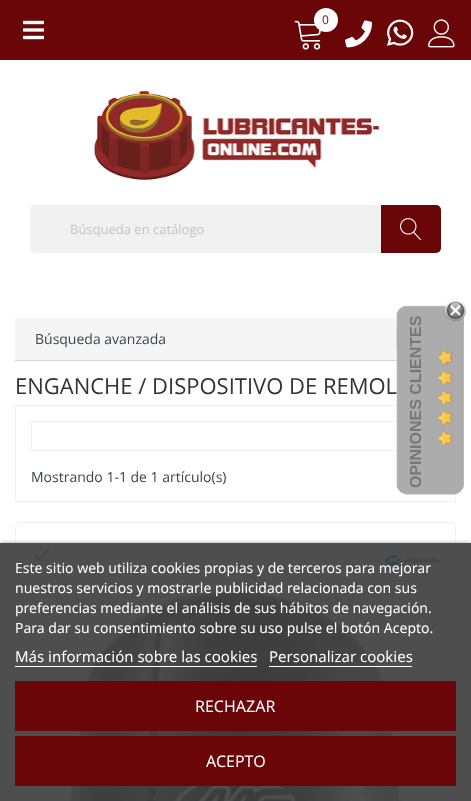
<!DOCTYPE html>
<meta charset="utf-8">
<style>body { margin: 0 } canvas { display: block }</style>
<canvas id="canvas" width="471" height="801"></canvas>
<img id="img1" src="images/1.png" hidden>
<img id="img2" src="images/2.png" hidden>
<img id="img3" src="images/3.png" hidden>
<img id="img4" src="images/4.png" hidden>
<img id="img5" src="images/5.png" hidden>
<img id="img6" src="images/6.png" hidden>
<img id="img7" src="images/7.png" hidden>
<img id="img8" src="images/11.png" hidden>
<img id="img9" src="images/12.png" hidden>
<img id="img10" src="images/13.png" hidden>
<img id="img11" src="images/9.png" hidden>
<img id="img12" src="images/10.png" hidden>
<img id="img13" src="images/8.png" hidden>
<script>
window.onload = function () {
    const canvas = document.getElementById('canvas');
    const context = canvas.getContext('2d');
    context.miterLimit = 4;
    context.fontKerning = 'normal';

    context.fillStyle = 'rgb(255, 255, 255)';
    context.fillRect(0, 0, 471, 801);
    context.fillStyle = 'rgb(107, 6, 8)';
    context.fillRect(0, 0, 471, 60);
    context.drawImage(document.getElementById('img1'), 23, 20, 21, 20);
    context.drawImage(document.getElementById('img2'), 294, 20, 27, 30);
    context.fillStyle = 'rgb(255, 255, 255)';
    context.beginPath();
    context.arc(326, 20, 12, 0, 2 * Math.PI);
    context.fill();
    context.drawImage(document.getElementById('img3'), 345, 20, 27, 28);
    context.drawImage(document.getElementById('img4'), 387, 19, 27, 27);
    context.drawImage(document.getElementById('img5'), 428, 19, 27, 29);
    context.drawImage(document.getElementById('img6'), 94, 91, 286, 89);
    context.fillStyle = 'rgb(241, 241, 241)';
    context.beginPath();
    context.roundRect(30, 205, 411, 48, 5);
    context.fill();
    context.fillStyle = 'rgb(107, 6, 8)';
    context.beginPath();
    context.roundRect(381, 205, 60, 48, [0, 5, 5, 0]);
    context.fill();
    context.drawImage(document.getElementById('img7'), 400, 218, 21, 23);
    context.beginPath();
    context.roundRect(15.5, 522.5, 440, 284, 4.5);
    context.strokeStyle = 'rgb(240, 240, 240)';
    context.stroke();
    context.drawImage(document.getElementById('img8'), 34, 549, 16, 12);
    context.drawImage(document.getElementById('img9'), 385, 550, 55, 19);
    context.drawImage(document.getElementById('img10'), 68, 588, 339, 213);
    context.save();
    context.beginPath();
    context.rect(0, 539, 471, 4);
    context.clip();
    context.fillStyle = 'rgb(112, 112, 112)';
    context.filter = 'blur(2.5px)';
    context.beginPath();
    context.rect(0, 544, 471, 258);
    context.fill();
    context.filter = 'none';
    context.restore();
    context.fillStyle = 'rgba(59, 59, 59, 0.9)';
    context.fillRect(0, 543, 471, 258);
    context.fillStyle = 'rgb(255, 255, 255)';
    context.fillRect(15, 666, 242, 1);
    context.fillRect(269, 666, 143, 1);
    context.fillStyle = 'rgb(107, 6, 8)';
    context.fillRect(15, 681, 441, 50);
    context.fillRect(15, 736, 441, 50);
    context.fillStyle = 'rgb(245, 245, 245)';
    context.fillRect(15, 318, 383, 42);
    context.fillStyle = 'rgb(214, 214, 214)';
    context.fillRect(15, 360, 383, 1);
    context.strokeRect(15.5, 405.5, 440, 96);
    context.strokeRect(31.5, 421.5, 408, 29);
    context.font = '12px Open Sans';
    context.fillStyle = 'rgb(107, 6, 8)';
    context.fillText('0', 322, 24);
    context.font = '13px Open Sans';
    context.fillStyle = 'rgb(196, 196, 196)';
    context.fillText('Búsqueda en catálogo', 70, 234);
    context.font = '14px Noto Sans';
    context.fillStyle = 'rgb(255, 255, 255)';
    context.fillText('Este sitio web utiliza cookies propias y de terceros para mejorar', 15, 573);
    context.fillText('nuestros servicios y mostrarle publicidad relacionada con sus', 15, 593);
    context.fillText('preferencias mediante el análisis de sus hábitos de navegación.', 15, 613);
    context.fillText('Para dar su consentimiento sobre su uso pulse el botón Acepto.', 15, 633);
    context.font = '15px Noto Sans';
    context.fillText('Más información sobre las cookies', 15, 662);
    context.fillText('Personalizar cookies', 269, 662);
    context.font = '16px Noto Sans';
    context.fillText('RECHAZAR', 195, 712);
    context.fillText('ACEPTO', 206, 767);
    context.font = '14px Open Sans';
    context.fillStyle = 'rgb(62, 68, 74)';
    context.fillText('Búsqueda avanzada', 35, 344);
    context.font = '22px Open Sans';
    context.fillStyle = 'rgb(51, 51, 51)';
    context.fillText('ENGANCHE / DISPOSITIVO DE REMOL', 15, 394);
    context.drawImage(document.getElementById('img11'), 396, 305, 69, 190);
    context.drawImage(document.getElementById('img12'), 436, 349, 17, 98);
    context.font = 'bold 16px Liberation Sans';
    context.fillStyle = 'rgb(119, 119, 119)';
    context.save();
    context.translate(421, 488);
    context.rotate(-90 * Math.PI / 180);
    context.fillText('OPINIONES CLIENTES', 0, 0);
    context.restore();
    context.drawImage(document.getElementById('img13'), 445, 300, 21, 21);
    context.font = '14px Open Sans';
    context.fillStyle = 'rgb(62, 68, 74)';
    context.fillText('Mostrando 1-1 de 1 artículo(s)', 31, 482);
};
</script>
